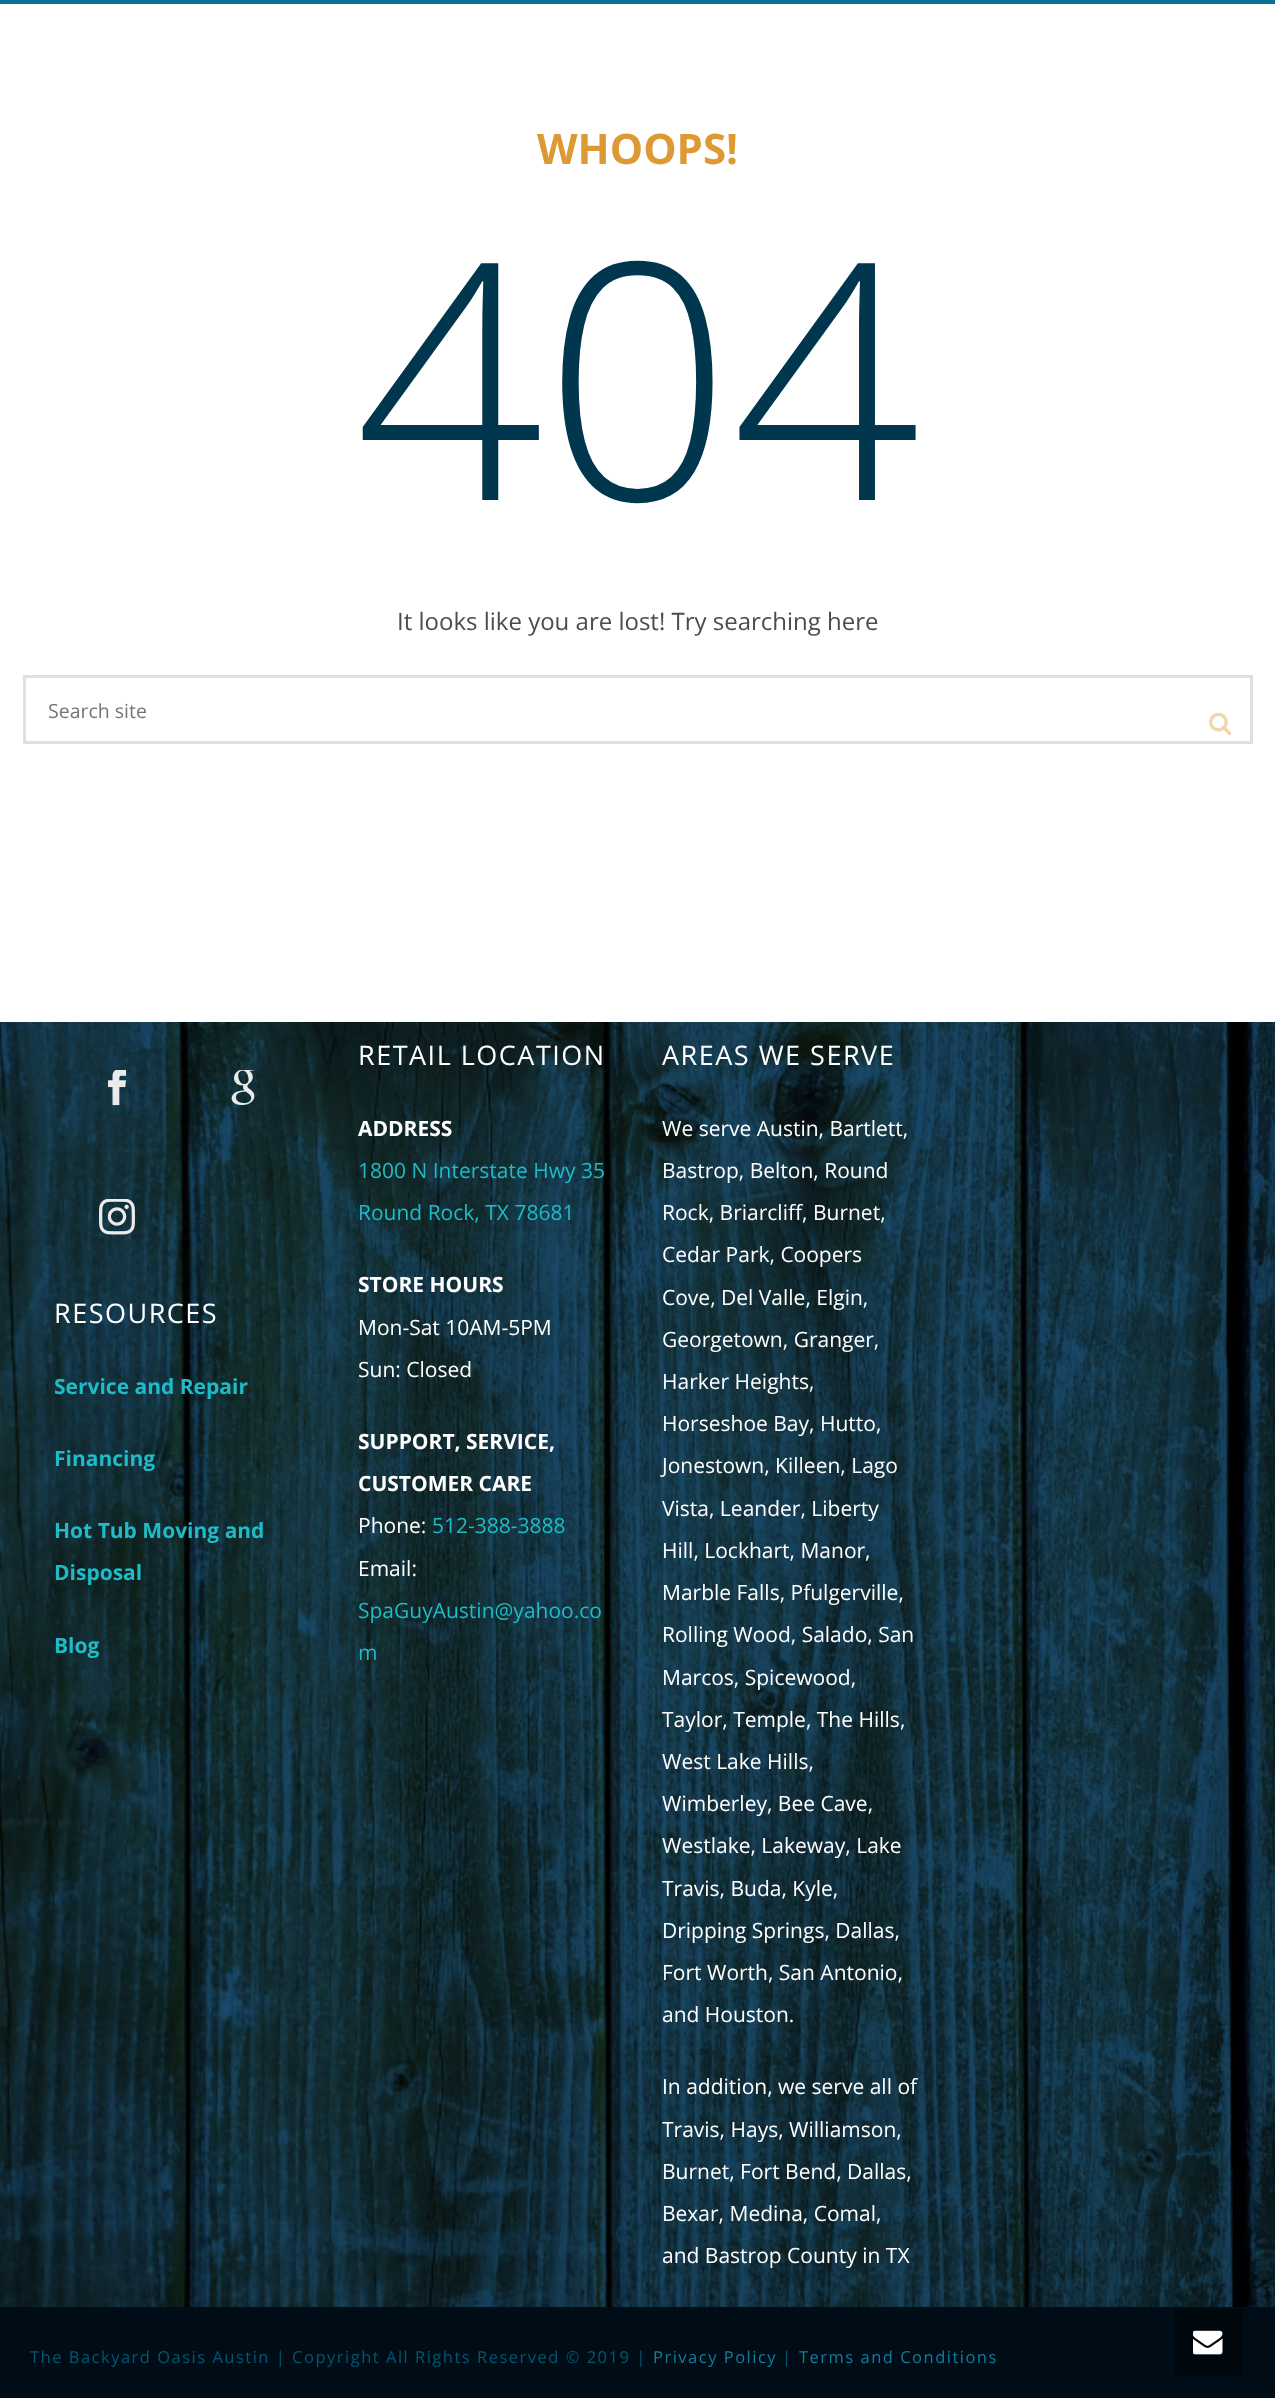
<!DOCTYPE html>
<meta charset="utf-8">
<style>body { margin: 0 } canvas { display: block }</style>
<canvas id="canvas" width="1275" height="2398"></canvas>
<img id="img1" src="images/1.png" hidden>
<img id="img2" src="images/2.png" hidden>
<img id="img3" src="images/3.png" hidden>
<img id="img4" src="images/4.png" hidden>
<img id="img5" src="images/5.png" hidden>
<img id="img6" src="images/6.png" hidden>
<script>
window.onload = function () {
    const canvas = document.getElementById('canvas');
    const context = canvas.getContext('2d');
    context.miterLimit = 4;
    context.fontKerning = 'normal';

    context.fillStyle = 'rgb(255, 255, 255)';
    context.fillRect(0, 0, 1275, 2398);
    context.fillStyle = 'rgb(10, 113, 145)';
    context.fillRect(0, 0, 1275, 4);
    context.strokeStyle = 'rgb(223, 223, 223)';
    context.lineWidth = 3;
    context.strokeRect(24.5, 676.5, 1227, 66);
    context.drawImage(document.getElementById('img1'), 1209, 712, 23, 23);
    context.drawImage(document.getElementById('img2'), 0, 1022, 1275, 1285);
    context.drawImage(document.getElementById('img3'), 108, 1070, 19, 36);
    context.drawImage(document.getElementById('img4'), 231, 1070, 24, 36);
    context.drawImage(document.getElementById('img5'), 99, 1199, 36, 36);
    context.fillStyle = 'rgb(0, 13, 22)';
    context.fillRect(0, 2307, 1275, 91);
    context.fillStyle = 'rgb(0, 8, 13)';
    context.fillRect(1175, 2309, 67, 67);
    context.drawImage(document.getElementById('img6'), 1193, 2330, 30, 25);
    context.font = 'bold 42px Open Sans';
    context.fillStyle = 'rgb(221, 153, 51)';
    context.fillText('WHOOPS!', 537, 164);
    context.font = '300 330px Open Sans';
    context.fillStyle = 'rgb(0, 55, 79)';
    context.fillText('404', 355, 500);
    context.font = '24px Open Sans';
    context.fillStyle = 'rgb(76, 76, 76)';
    context.fillText('It looks like you are lost! Try searching here', 397, 630);
    context.font = '19.5px Open Sans';
    context.fillStyle = 'rgb(117, 117, 117)';
    context.fillText('Search site', 48, 718);
    context.letterSpacing = '1.5px';
    context.font = '27px Open Sans';
    context.fillStyle = 'rgb(255, 255, 255)';
    context.fillText('RESOURCES', 54, 1323);
    context.letterSpacing = '0px';
    context.font = 'bold 21px Open Sans';
    context.fillStyle = 'rgb(31, 187, 198)';
    context.fillText('Service and Repair', 54, 1394);
    context.fillText('Financing', 54, 1466);
    context.fillText('Hot Tub Moving and', 54, 1538);
    context.fillText('Disposal', 54, 1580);
    context.fillText('Blog', 54, 1653);
    context.letterSpacing = '1.5px';
    context.font = '27px Open Sans';
    context.fillStyle = 'rgb(255, 255, 255)';
    context.fillText('RETAIL LOCATION', 358, 1065);
    context.letterSpacing = '0px';
    context.font = 'bold 21px Open Sans';
    context.fillText('ADDRESS', 358, 1136);
    context.font = '21px Open Sans';
    context.fillStyle = 'rgb(31, 187, 198)';
    context.fillText('1800 N Interstate Hwy 35', 358, 1178);
    context.fillText('Round Rock, TX 78681', 358, 1220);
    context.font = 'bold 21px Open Sans';
    context.fillStyle = 'rgb(255, 255, 255)';
    context.fillText('STORE HOURS', 358, 1292);
    context.font = '21px Open Sans';
    context.fillText('Mon-Sat 10AM-5PM', 358, 1335);
    context.fillText('Sun: Closed', 358, 1377);
    context.font = 'bold 21px Open Sans';
    context.fillText('SUPPORT, SERVICE,', 358, 1449);
    context.fillText('CUSTOMER CARE', 358, 1491);
    context.font = '21px Open Sans';
    context.fillText('Phone:', 358, 1533);
    context.fillStyle = 'rgb(31, 187, 198)';
    context.fillText('512-388-3888', 432, 1533);
    context.fillStyle = 'rgb(255, 255, 255)';
    context.fillText('Email:', 358, 1576);
    context.fillStyle = 'rgb(31, 187, 198)';
    context.fillText('SpaGuyAustin@yahoo.co', 358, 1618);
    context.fillText('m', 358, 1660);
    context.letterSpacing = '1.5px';
    context.font = '27px Open Sans';
    context.fillStyle = 'rgb(255, 255, 255)';
    context.fillText('AREAS WE SERVE', 662, 1065);
    context.letterSpacing = '0px';
    context.font = '21px Open Sans';
    context.fillText('We serve Austin, Bartlett,', 662, 1136);
    context.fillText('Bastrop, Belton, Round', 662, 1178);
    context.fillText('Rock, Briarcliff, Burnet,', 662, 1220);
    context.fillText('Cedar Park, Coopers', 662, 1262);
    context.fillText('Cove, Del Valle, Elgin,', 662, 1305);
    context.fillText('Georgetown, Granger,', 662, 1347);
    context.fillText('Harker Heights,', 662, 1389);
    context.fillText('Horseshoe Bay, Hutto,', 662, 1431);
    context.fillText('Jonestown, Killeen, Lago', 662, 1473);
    context.fillText('Vista, Leander, Liberty', 662, 1516);
    context.fillText('Hill, Lockhart, Manor,', 662, 1558);
    context.fillText('Marble Falls, Pfulgerville,', 662, 1600);
    context.fillText('Rolling Wood, Salado, San', 662, 1642);
    context.fillText('Marcos, Spicewood,', 662, 1685);
    context.fillText('Taylor, Temple, The Hills,', 662, 1727);
    context.fillText('West Lake Hills,', 662, 1769);
    context.fillText('Wimberley, Bee Cave,', 662, 1811);
    context.fillText('Westlake, Lakeway, Lake', 662, 1853);
    context.fillText('Travis, Buda, Kyle,', 662, 1896);
    context.fillText('Dripping Springs, Dallas,', 662, 1938);
    context.fillText('Fort Worth, San Antonio,', 662, 1980);
    context.fillText('and Houston.', 662, 2022);
    context.fillText('In addition, we serve all of', 662, 2094);
    context.fillText('Travis, Hays, Williamson,', 662, 2137);
    context.fillText('Burnet, Fort Bend, Dallas,', 662, 2179);
    context.fillText('Bexar, Medina, Comal,', 662, 2221);
    context.fillText('and Bastrop County in TX', 662, 2263);
    context.letterSpacing = '1.5px';
    context.font = '16.5px Open Sans';
    context.fillStyle = 'rgb(3, 87, 114)';
    context.fillText('The Backyard Oasis Austin | Copyright All Rights Reserved © 2019 |', 30, 2363);
    context.fillStyle = 'rgb(15, 127, 157)';
    context.fillText('Privacy Policy', 653, 2363);
    context.fillStyle = 'rgb(3, 87, 114)';
    context.fillText('|', 782, 2363);
    context.fillStyle = 'rgb(15, 127, 157)';
    context.fillText('Terms and Conditions', 799, 2363);
};
</script>
